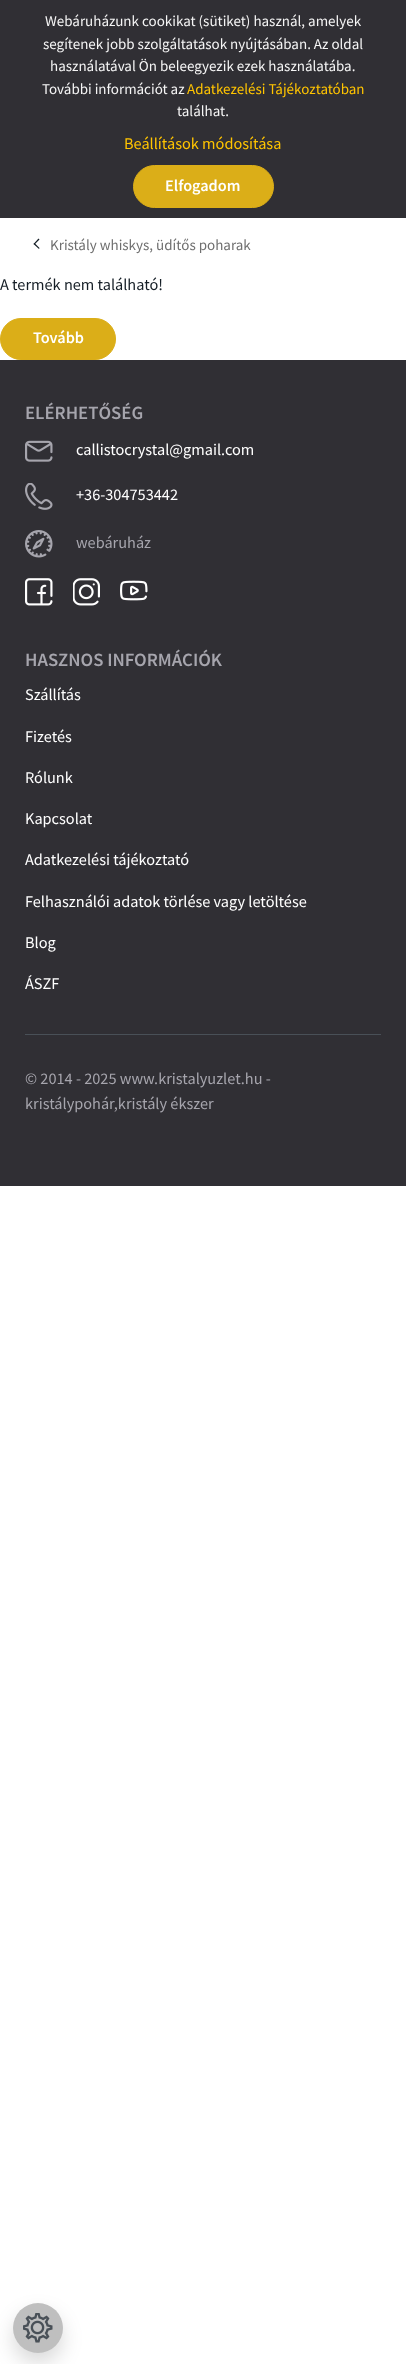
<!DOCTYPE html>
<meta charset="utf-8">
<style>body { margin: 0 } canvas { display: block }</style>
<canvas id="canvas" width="406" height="2364"></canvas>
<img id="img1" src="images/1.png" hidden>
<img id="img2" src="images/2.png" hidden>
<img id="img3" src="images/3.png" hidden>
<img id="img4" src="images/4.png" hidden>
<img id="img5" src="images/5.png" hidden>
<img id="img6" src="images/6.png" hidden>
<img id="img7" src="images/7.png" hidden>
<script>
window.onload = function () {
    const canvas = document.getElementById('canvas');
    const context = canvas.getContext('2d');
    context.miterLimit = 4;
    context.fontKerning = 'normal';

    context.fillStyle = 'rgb(255, 255, 255)';
    context.fillRect(0, 0, 406, 2364);
    context.fillStyle = 'rgb(48, 47, 52)';
    context.fillRect(0, 0, 406, 218);
    context.fillStyle = 'rgb(219, 174, 24)';
    context.beginPath();
    context.roundRect(133.5, 165.5, 140, 42, 21);
    context.fill();
    context.strokeStyle = 'rgb(219, 174, 24)';
    context.stroke();
    context.fillStyle = 'rgb(21, 30, 38)';
    context.beginPath();
    context.moveTo(39.5, 248);
    context.lineTo(39, 249);
    context.lineTo(33.5, 244);
    context.lineTo(34.5, 243);
    context.closePath();
    context.fill();
    context.beginPath();
    context.moveTo(39.5, 239.5);
    context.lineTo(34.5, 244.5);
    context.lineTo(33.5, 244);
    context.lineTo(38.5, 238.5);
    context.closePath();
    context.fill();
    context.fillStyle = 'rgb(219, 174, 24)';
    context.beginPath();
    context.roundRect(0.5, 318.5, 115, 41, 20.5);
    context.fill();
    context.stroke();
    context.fillStyle = 'rgb(48, 47, 52)';
    context.fillRect(0, 360, 406, 826);
    context.drawImage(document.getElementById('img1'), 25, 440, 28, 22);
    context.drawImage(document.getElementById('img2'), 25, 483, 28, 27);
    context.drawImage(document.getElementById('img3'), 25, 530, 28, 28);
    context.drawImage(document.getElementById('img4'), 25, 578, 28, 28);
    context.drawImage(document.getElementById('img5'), 73, 578, 27, 28);
    context.drawImage(document.getElementById('img6'), 120, 580, 28, 21);
    context.fillStyle = 'rgb(73, 80, 87)';
    context.fillRect(25, 1034, 356, 1);
    context.fillStyle = 'rgba(0, 0, 0, 0.15)';
    context.filter = 'blur(10px)';
    context.beginPath();
    context.roundRect(13, 2313, 50, 50, 25);
    context.fill();
    context.filter = 'none';
    context.fillStyle = 'rgb(191, 191, 191)';
    context.beginPath();
    context.arc(38, 2328, 25, 0, 2 * Math.PI);
    context.fill();
    context.drawImage(document.getElementById('img7'), 23, 2313, 30, 30);
    context.font = '15px Source Sans Pro';
    context.fillStyle = 'rgb(245, 245, 245)';
    context.fillText('Webáruházunk cookikat (sütiket) használ, amelyek', 45, 26);
    context.fillText('segítenek jobb szolgáltatások nyújtásában. Az oldal', 43, 49);
    context.fillText('használatával Ön beleegyezik ezek használatába.', 50, 71);
    context.fillText('További információt az', 42, 94);
    context.fillStyle = 'rgb(255, 196, 0)';
    context.fillText('Adatkezelési Tájékoztatóban', 187, 94);
    context.fillStyle = 'rgb(245, 245, 245)';
    context.fillText('találhat.', 177, 116);
    context.font = '16.25px Source Sans Pro';
    context.fillStyle = 'rgb(255, 196, 0)';
    context.fillText('Beállítások módosítása', 124, 149);
    context.font = '600 16.25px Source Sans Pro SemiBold';
    context.fillStyle = 'rgb(255, 255, 255)';
    context.fillText('Elfogadom', 165, 191);
    context.font = '15px Source Sans Pro';
    context.fillStyle = 'rgb(111, 111, 111)';
    context.fillText('Kristály whiskys, üdítős poharak', 50, 250);
    context.font = '16.25px Source Sans Pro';
    context.fillStyle = 'rgb(21, 30, 38)';
    context.fillText('A termék nem található!', 0, 290);
    context.font = '600 16.25px Source Sans Pro SemiBold';
    context.fillStyle = 'rgb(255, 255, 255)';
    context.fillText('Tovább', 33, 343);
    context.font = '600 18.75px Source Sans Pro SemiBold';
    context.fillStyle = 'rgb(166, 165, 173)';
    context.fillText('ELÉRHETŐSÉG', 25, 419);
    context.font = '16.25px Source Sans Pro';
    context.fillStyle = 'rgb(255, 255, 255)';
    context.fillText('callistocrystal@gmail.com', 76, 455);
    context.fillText('+36-304753442', 76, 500);
    context.fillStyle = 'rgb(166, 165, 173)';
    context.fillText('webáruház', 76, 548);
    context.font = '600 18.75px Source Sans Pro SemiBold';
    context.fillText('HASZNOS INFORMÁCIÓK', 25, 666);
    context.font = '16.25px Source Sans Pro';
    context.fillStyle = 'rgb(255, 255, 255)';
    context.fillText('Szállítás', 25, 700);
    context.fillText('Fizetés', 25, 742);
    context.fillText('Rólunk', 25, 783);
    context.fillText('Kapcsolat', 25, 824);
    context.fillText('Adatkezelési tájékoztató', 25, 865);
    context.fillText('Felhasználói adatok törlése vagy letöltése', 25, 907);
    context.fillText('Blog', 25, 948);
    context.fillText('ÁSZF', 25, 989);
    context.fillStyle = 'rgb(166, 165, 173)';
    context.fillText('© 2014 - 2025 www.kristalyuzlet.hu -', 25, 1084);
    context.fillText('kristálypohár,kristály ékszer', 25, 1109);
};
</script>
